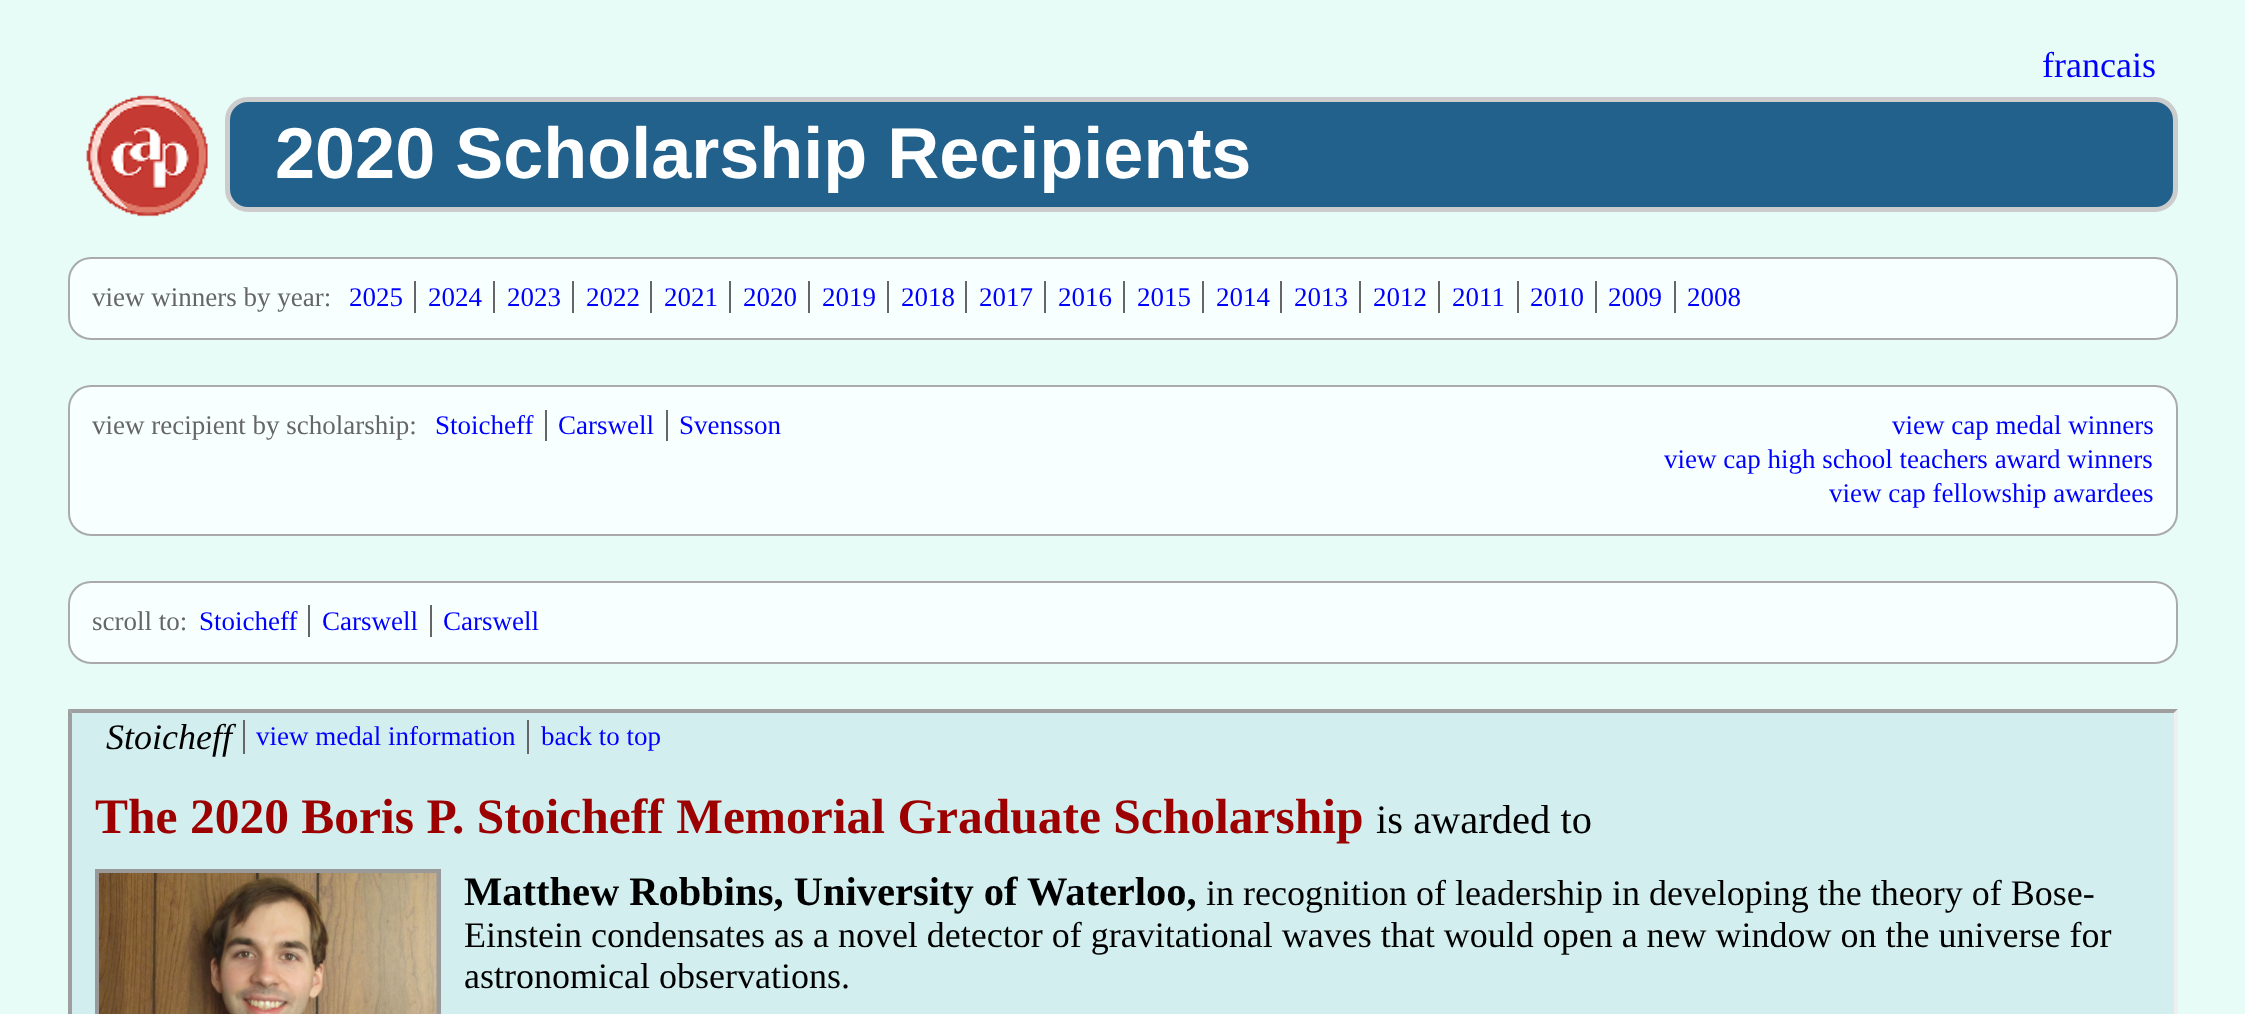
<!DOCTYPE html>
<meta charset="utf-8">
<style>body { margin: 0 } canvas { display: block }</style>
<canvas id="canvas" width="2245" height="1014"></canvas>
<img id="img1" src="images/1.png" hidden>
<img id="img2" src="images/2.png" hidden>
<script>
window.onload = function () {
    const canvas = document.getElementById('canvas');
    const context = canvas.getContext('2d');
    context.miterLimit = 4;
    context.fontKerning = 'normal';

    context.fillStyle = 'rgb(231, 251, 247)';
    context.fillRect(0, 0, 2245, 1014);
    context.drawImage(document.getElementById('img1'), 86, 95, 122, 122);
    context.fillStyle = 'rgb(33, 97, 140)';
    context.beginPath();
    context.roundRect(227.5, 99.5, 1948, 110, 20.5);
    context.fill();
    context.strokeStyle = 'rgb(204, 204, 204)';
    context.lineWidth = 5;
    context.stroke();
    context.fillStyle = 'rgb(247, 255, 255)';
    context.beginPath();
    context.roundRect(69, 258, 2108, 81, 22);
    context.fill();
    context.strokeStyle = 'rgb(170, 170, 170)';
    context.lineWidth = 2;
    context.stroke();
    context.fillStyle = 'rgb(102, 102, 102)';
    context.fillRect(414, 281, 2, 32);
    context.fillRect(493, 281, 2, 32);
    context.fillRect(572, 281, 2, 32);
    context.fillRect(650, 281, 2, 32);
    context.fillRect(729, 281, 2, 32);
    context.fillRect(808, 281, 2, 32);
    context.fillRect(887, 281, 2, 32);
    context.fillRect(965, 281, 2, 32);
    context.fillRect(1044, 281, 2, 32);
    context.fillRect(1123, 281, 2, 32);
    context.fillRect(1202, 281, 2, 32);
    context.fillRect(1280, 281, 2, 32);
    context.fillRect(1359, 281, 2, 32);
    context.fillRect(1438, 281, 2, 32);
    context.fillRect(1517, 281, 2, 32);
    context.fillRect(1595, 281, 2, 32);
    context.fillRect(1674, 281, 2, 32);
    context.fillStyle = 'rgb(247, 255, 255)';
    context.beginPath();
    context.roundRect(69, 386, 2108, 149, 22);
    context.fill();
    context.stroke();
    context.fillStyle = 'rgb(102, 102, 102)';
    context.fillRect(545, 410, 2, 31);
    context.fillRect(666, 410, 2, 31);
    context.fillStyle = 'rgb(247, 255, 255)';
    context.beginPath();
    context.roundRect(69, 582, 2108, 81, 22);
    context.fill();
    context.stroke();
    context.fillStyle = 'rgb(102, 102, 102)';
    context.fillRect(308, 605, 2, 32);
    context.fillRect(430, 605, 2, 32);
    context.fillStyle = 'rgb(210, 238, 238)';
    context.fillRect(68, 709, 2110, 305);
    context.fillStyle = 'rgb(159, 159, 159)';
    context.beginPath();
    context.moveTo(68, 709);
    context.lineTo(2178, 709);
    context.lineTo(2174, 713);
    context.lineTo(72, 713);
    context.closePath();
    context.fill();
    context.fillStyle = 'rgb(239, 239, 239)';
    context.beginPath();
    context.moveTo(2178, 709);
    context.lineTo(2178, 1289);
    context.lineTo(2174, 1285);
    context.lineTo(2174, 713);
    context.closePath();
    context.fill();
    context.fillStyle = 'rgb(159, 159, 159)';
    context.beginPath();
    context.moveTo(68, 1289);
    context.lineTo(68, 709);
    context.lineTo(72, 713);
    context.lineTo(72, 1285);
    context.closePath();
    context.fill();
    context.fillStyle = 'rgb(102, 102, 102)';
    context.fillRect(243, 720, 2, 34);
    context.fillRect(527, 720, 2, 34);
    context.strokeStyle = 'rgb(153, 153, 153)';
    context.lineWidth = 5;
    context.strokeRect(97.5, 871.5, 341, 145);
    context.drawImage(document.getElementById('img2'), 99, 873, 338, 141);
    context.font = '36px Liberation Serif';
    context.fillStyle = 'rgb(0, 0, 255)';
    context.fillText('francais', 2042, 77);
    context.font = 'bold 72px Liberation Sans';
    context.fillStyle = 'rgb(255, 255, 255)';
    context.fillText('2020 Scholarship Recipients', 275, 178);
    context.font = '27px Liberation Serif';
    context.fillStyle = 'rgb(102, 102, 102)';
    context.fillText('view winners by year:', 92, 306);
    context.fillStyle = 'rgb(0, 0, 255)';
    context.fillText('2025', 349, 306);
    context.fillText('2024', 428, 306);
    context.fillText('2023', 507, 306);
    context.fillText('2022', 586, 306);
    context.fillText('2021', 664, 306);
    context.fillText('2020', 743, 306);
    context.fillText('2019', 822, 306);
    context.fillText('2018', 901, 306);
    context.fillText('2017', 979, 306);
    context.fillText('2016', 1058, 306);
    context.fillText('2015', 1137, 306);
    context.fillText('2014', 1216, 306);
    context.fillText('2013', 1294, 306);
    context.fillText('2012', 1373, 306);
    context.fillText('2011', 1452, 306);
    context.fillText('2010', 1530, 306);
    context.fillText('2009', 1608, 306);
    context.fillText('2008', 1687, 306);
    context.fillStyle = 'rgb(102, 102, 102)';
    context.fillText('view recipient by scholarship:', 92, 434);
    context.fillStyle = 'rgb(0, 0, 255)';
    context.fillText('Stoicheff', 435, 434);
    context.fillText('Carswell', 558, 434);
    context.fillText('Svensson', 679, 434);
    context.fillText('view cap medal winners', 1892, 434);
    context.fillText('view cap high school teachers award winners', 1664, 468);
    context.fillText('view cap fellowship awardees', 1829, 502);
    context.fillStyle = 'rgb(102, 102, 102)';
    context.fillText('scroll to:', 92, 630);
    context.fillStyle = 'rgb(0, 0, 255)';
    context.fillText('Stoicheff', 199, 630);
    context.fillText('Carswell', 322, 630);
    context.fillText('Carswell', 443, 630);
    context.font = 'italic 36px Liberation Serif';
    context.fillStyle = 'rgb(0, 0, 0)';
    context.fillText('Stoicheff', 106, 749);
    context.font = '27px Liberation Serif';
    context.fillStyle = 'rgb(0, 0, 255)';
    context.fillText('view medal information', 256, 745);
    context.fillText('back to top', 541, 745);
    context.font = 'bold 49.5px Liberation Serif';
    context.fillStyle = 'rgb(156, 0, 0)';
    context.fillText('The 2020 Boris P. Stoicheff Memorial Graduate Scholarship', 95, 833);
    context.font = '40.5px Liberation Serif';
    context.fillStyle = 'rgb(0, 0, 0)';
    context.fillText('is awarded to', 1376, 833);
    context.font = 'bold 40.5px Liberation Serif';
    context.fillText('Matthew Robbins, University of Waterloo,', 464, 905);
    context.font = '36px Liberation Serif';
    context.fillText('in recognition of leadership in developing the theory of Bose-', 1206, 905);
    context.fillText('Einstein condensates as a novel detector of gravitational waves that would open a new window on the universe for', 464, 947);
    context.fillText('astronomical observations.', 464, 988);
};
</script>
